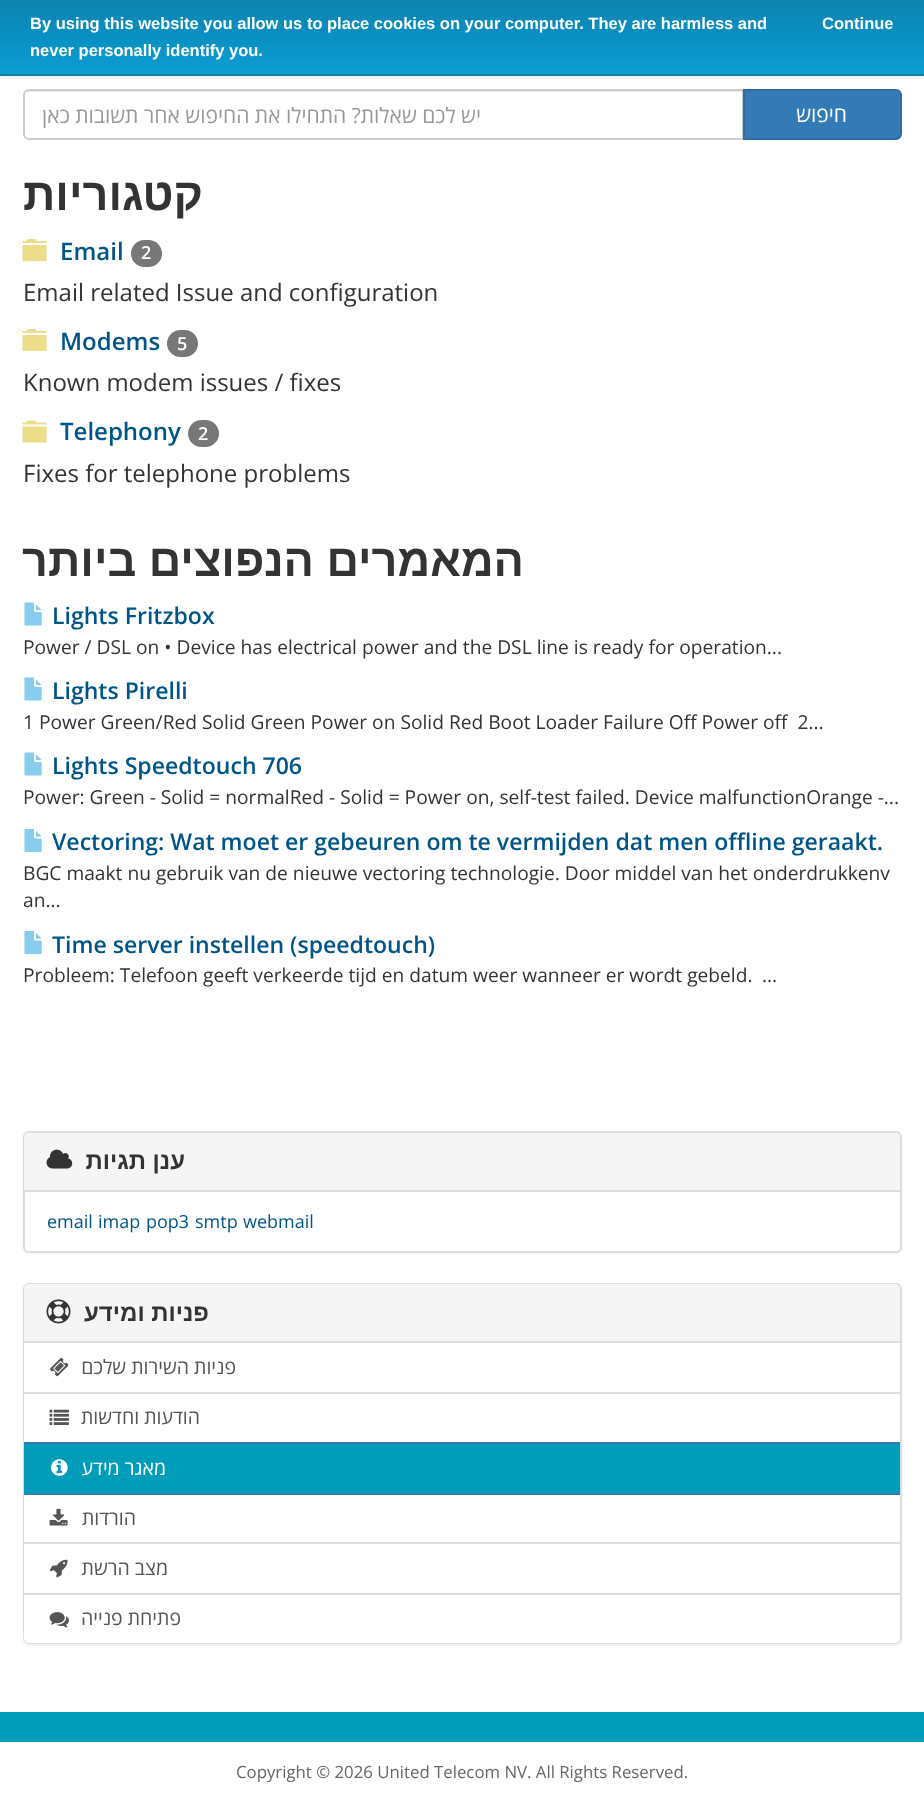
<!DOCTYPE html>
<meta charset="utf-8">
<style>body { margin: 0 } canvas { display: block }</style>
<canvas id="canvas" width="924" height="1798"></canvas>
<img id="img1" src="images/1.png" hidden>
<img id="img2" src="images/2.png" hidden>
<img id="img3" src="images/3.png" hidden>
<img id="img4" src="images/4.png" hidden>
<img id="img5" src="images/5.png" hidden>
<img id="img6" src="images/6.png" hidden>
<img id="img7" src="images/7.png" hidden>
<img id="img8" src="images/8.png" hidden>
<img id="img9" src="images/9.png" hidden>
<img id="img10" src="images/10.png" hidden>
<img id="img11" src="images/11.png" hidden>
<img id="img12" src="images/12.png" hidden>
<script>
window.onload = function () {
    const canvas = document.getElementById('canvas');
    const context = canvas.getContext('2d');
    context.miterLimit = 4;
    context.fontKerning = 'normal';
    let gradient;

    context.fillStyle = 'rgb(255, 255, 255)';
    context.fillRect(0, 0, 924, 1798);
    context.fillStyle = 'rgb(204, 204, 204)';
    context.filter = 'blur(2px)';
    context.beginPath();
    context.rect(0, 0, 924, 75);
    context.fill();
    context.filter = 'none';
    gradient = context.createLinearGradient(462, 0, 462, 74);
    gradient.addColorStop(0, 'rgb(14, 131, 174)');
    gradient.addColorStop(0.5, 'rgb(9, 144, 195)');
    gradient.addColorStop(1, 'rgb(14, 157, 210)');
    context.fillStyle = gradient;
    context.fillRect(0, 0, 924, 74);
    context.fillStyle = 'rgb(14, 131, 174)';
    context.fillRect(0, 74, 924, 2);
    context.fillStyle = 'rgb(236, 236, 236)';
    context.beginPath();
    context.moveTo(28, 92);
    context.lineTo(742, 92);
    context.lineTo(742, 138);
    context.lineTo(743, 138);
    context.lineTo(743, 90);
    context.lineTo(29, 90);
    context.bezierCurveTo(26, 90, 24, 93, 24, 96);
    context.bezierCurveTo(24, 94, 26, 92, 28, 92);
    context.closePath();
    context.fill();
    context.beginPath();
    context.roundRect(24, 90, 719, 49, [5, 0, 0, 5]);
    context.strokeStyle = 'rgb(204, 204, 204)';
    context.lineWidth = 2;
    context.stroke();
    context.fillStyle = 'rgb(51, 122, 183)';
    context.beginPath();
    context.roundRect(744, 90, 157, 49, [0, 5, 5, 0]);
    context.fill();
    context.strokeStyle = 'rgb(46, 109, 164)';
    context.stroke();
    context.drawImage(document.getElementById('img1'), 22, 239, 25, 22);
    context.fillStyle = 'rgb(119, 119, 119)';
    context.beginPath();
    context.roundRect(131, 240, 31, 27, 13.5);
    context.fill();
    context.drawImage(document.getElementById('img1'), 22, 329, 25, 22);
    context.beginPath();
    context.roundRect(167, 330, 31, 27, 13.5);
    context.fill();
    context.drawImage(document.getElementById('img2'), 22, 420, 25, 23);
    context.beginPath();
    context.roundRect(188, 420, 31, 27, 13.5);
    context.fill();
    context.drawImage(document.getElementById('img3'), 24, 602, 18, 24);
    context.drawImage(document.getElementById('img3'), 24, 677, 18, 24);
    context.drawImage(document.getElementById('img3'), 24, 752, 18, 24);
    context.drawImage(document.getElementById('img4'), 24, 828, 18, 24);
    context.drawImage(document.getElementById('img4'), 24, 930, 18, 24);
    context.fillStyle = 'rgba(0, 0, 0, 0.05)';
    context.filter = 'blur(1px)';
    context.beginPath();
    context.roundRect(23, 1133, 879, 121, 6);
    context.fill();
    context.filter = 'none';
    context.fillStyle = 'rgb(255, 255, 255)';
    context.beginPath();
    context.roundRect(24, 1132, 877, 120, 5);
    context.fill();
    context.strokeStyle = 'rgb(221, 221, 221)';
    context.stroke();
    context.fillStyle = 'rgb(245, 245, 245)';
    context.beginPath();
    context.roundRect(24, 1133, 876, 58, [5, 5, 0, 0]);
    context.fill();
    context.fillStyle = 'rgb(221, 221, 221)';
    context.fillRect(24, 1190, 876, 2);
    context.drawImage(document.getElementById('img5'), 46, 1149, 27, 20);
    context.fillStyle = 'rgba(0, 0, 0, 0.05)';
    context.filter = 'blur(1px)';
    context.beginPath();
    context.roundRect(23, 1284, 879, 362, 6);
    context.fill();
    context.filter = 'none';
    context.beginPath();
    context.roundRect(24, 1284, 877, 359, 5);
    context.stroke();
    context.fillStyle = 'rgb(245, 245, 245)';
    context.beginPath();
    context.roundRect(24, 1284, 876, 59, [5, 5, 0, 0]);
    context.fill();
    context.fillStyle = 'rgb(221, 221, 221)';
    context.fillRect(24, 1341, 876, 2);
    context.drawImage(document.getElementById('img6'), 46, 1299, 25, 25);
    context.fillStyle = 'rgb(255, 255, 255)';
    context.fillRect(24, 1343, 876, 49);
    context.fillStyle = 'rgb(221, 221, 221)';
    context.fillRect(24, 1392, 876, 2);
    context.drawImage(document.getElementById('img7'), 50, 1357, 19, 20);
    context.fillStyle = 'rgb(255, 255, 255)';
    context.fillRect(24, 1394, 876, 48);
    context.drawImage(document.getElementById('img8'), 49, 1409, 20, 16);
    context.fillStyle = 'rgb(0, 157, 187)';
    context.fillRect(24, 1444, 876, 49);
    context.fillStyle = 'rgb(51, 122, 183)';
    context.fillRect(24, 1442, 876, 2);
    context.fillRect(24, 1493, 876, 2);
    context.drawImage(document.getElementById('img9'), 51, 1459, 17, 17);
    context.fillStyle = 'rgb(255, 255, 255)';
    context.fillRect(24, 1495, 876, 47);
    context.fillStyle = 'rgb(221, 221, 221)';
    context.fillRect(24, 1542, 876, 2);
    context.drawImage(document.getElementById('img10'), 49, 1508, 19, 18);
    context.fillStyle = 'rgb(255, 255, 255)';
    context.fillRect(24, 1544, 876, 49);
    context.drawImage(document.getElementById('img11'), 49, 1559, 19, 19);
    context.beginPath();
    context.roundRect(24, 1593, 876, 50, [0, 0, 5, 5]);
    context.fill();
    context.fillStyle = 'rgb(221, 221, 221)';
    context.fillRect(24, 1593, 876, 2);
    context.drawImage(document.getElementById('img12'), 49, 1612, 20, 16);
    context.fillStyle = 'rgb(0, 157, 187)';
    context.fillRect(0, 1712, 924, 30);
    context.font = 'bold 16.5px Liberation Sans';
    context.fillStyle = 'rgb(255, 255, 255)';
    context.fillText('By using this website you allow us to place cookies on your computer. They are harmless and', 30, 29);
    context.fillText('never personally identify you.', 30, 56);
    context.fillText('Continue', 822, 29);
    context.direction = 'rtl';
    context.font = '21px Open Sans';
    context.fillStyle = 'rgb(153, 153, 153)';
    context.fillText('יש לכם שאלות? התחילו את החיפוש אחר תשובות כאן', 481, 123);
    context.fillStyle = 'rgb(255, 255, 255)';
    context.fillText('חיפוש', 847, 122);
    context.font = 'bold 45px Liberation Sans';
    context.fillStyle = 'rgb(51, 51, 51)';
    context.fillText('קטגוריות', 203, 210);
    context.direction = 'ltr';
    context.font = '600 24px Open Sans';
    context.fillStyle = 'rgb(0, 85, 136)';
    context.fillText('Email', 60, 260);
    context.font = '600 18px Open Sans';
    context.fillStyle = 'rgb(255, 255, 255)';
    context.fillText('2', 141, 259);
    context.font = '24px Open Sans';
    context.fillStyle = 'rgb(51, 51, 51)';
    context.fillText('Email related Issue and configuration', 23, 301);
    context.font = '600 24px Open Sans';
    context.fillStyle = 'rgb(0, 85, 136)';
    context.fillText('Modems', 60, 350);
    context.font = '600 18px Open Sans';
    context.fillStyle = 'rgb(255, 255, 255)';
    context.fillText('5', 177, 350);
    context.font = '24px Open Sans';
    context.fillStyle = 'rgb(51, 51, 51)';
    context.fillText('Known modem issues / fixes', 23, 391);
    context.font = '600 24px Open Sans';
    context.fillStyle = 'rgb(0, 85, 136)';
    context.fillText('Telephony', 60, 440);
    context.font = '600 18px Open Sans';
    context.fillStyle = 'rgb(255, 255, 255)';
    context.fillText('2', 198, 440);
    context.font = '24px Open Sans';
    context.fillStyle = 'rgb(51, 51, 51)';
    context.fillText('Fixes for telephone problems', 23, 482);
    context.direction = 'rtl';
    context.font = 'bold 45px Liberation Sans';
    context.fillText('המאמרים הנפוצים ביותר', 524, 576);
    context.direction = 'ltr';
    context.font = '600 23.05px Open Sans';
    context.fillStyle = 'rgb(0, 85, 136)';
    context.fillText('Lights Fritzbox', 52, 624);
    context.font = '19.2px Open Sans';
    context.fillStyle = 'rgb(51, 51, 51)';
    context.fillText('Power / DSL on • Device has electrical power and the DSL line is ready for operation...', 23, 654);
    context.font = '600 23.05px Open Sans';
    context.fillStyle = 'rgb(0, 85, 136)';
    context.fillText('Lights Pirelli', 52, 699);
    context.font = '19.2px Open Sans';
    context.fillStyle = 'rgb(51, 51, 51)';
    context.fillText('1 Power Green/Red Solid Green Power on Solid Red Boot Loader Failure Off Power off  2...', 23, 729);
    context.font = '600 23.05px Open Sans';
    context.fillStyle = 'rgb(0, 85, 136)';
    context.fillText('Lights Speedtouch 706', 52, 774);
    context.font = '19.2px Open Sans';
    context.fillStyle = 'rgb(51, 51, 51)';
    context.fillText('Power: Green - Solid = normalRed - Solid = Power on, self-test failed. Device malfunctionOrange -...', 23, 804);
    context.font = '600 23.05px Open Sans';
    context.fillStyle = 'rgb(0, 85, 136)';
    context.fillText('Vectoring: Wat moet er gebeuren om te vermijden dat men offline geraakt.', 52, 850);
    context.font = '19.2px Open Sans';
    context.fillStyle = 'rgb(51, 51, 51)';
    context.fillText('BGC maakt nu gebruik van de nieuwe vectoring technologie. Door middel van het onderdrukkenv', 23, 880);
    context.fillText('an...', 23, 907);
    context.font = '600 23.05px Open Sans';
    context.fillStyle = 'rgb(0, 85, 136)';
    context.fillText('Time server instellen (speedtouch)', 52, 953);
    context.font = '19.2px Open Sans';
    context.fillStyle = 'rgb(51, 51, 51)';
    context.fillText('Probleem: Telefoon geeft verkeerde tijd en datum weer wanneer er wordt gebeld.', 23, 982);
    context.fillText('...', 762, 982);
    context.direction = 'rtl';
    context.font = 'bold 24px Liberation Sans';
    context.fillText('ענן תגיות', 185, 1169);
    context.direction = 'ltr';
    context.font = '18px Open Sans';
    context.fillStyle = 'rgb(0, 85, 136)';
    context.fillText('email', 47, 1228);
    context.fillText('imap', 98, 1228);
    context.fillText('pop3', 146, 1228);
    context.fillText('smtp', 195, 1228);
    context.fillText('webmail', 243, 1228);
    context.direction = 'rtl';
    context.font = 'bold 24px Liberation Sans';
    context.fillStyle = 'rgb(51, 51, 51)';
    context.fillText('פניות ומידע', 209, 1321);
    context.font = '19.5px Open Sans';
    context.fillStyle = 'rgb(85, 85, 85)';
    context.fillText('פניות השירות שלכם', 236, 1374);
    context.fillText('הודעות וחדשות', 200, 1424);
    context.fillStyle = 'rgb(255, 255, 255)';
    context.fillText('מאגר מידע', 166, 1475);
    context.fillStyle = 'rgb(85, 85, 85)';
    context.fillText('הורדות', 136, 1525);
    context.fillText('מצב הרשת', 168, 1575);
    context.fillText('פתיחת פנייה', 181, 1625);
    context.direction = 'ltr';
    context.font = '16.8px Open Sans';
    context.fillStyle = 'rgb(102, 102, 102)';
    context.fillText('Copyright © 2026 United Telecom NV. All Rights Reserved.', 236, 1778);
};
</script>
